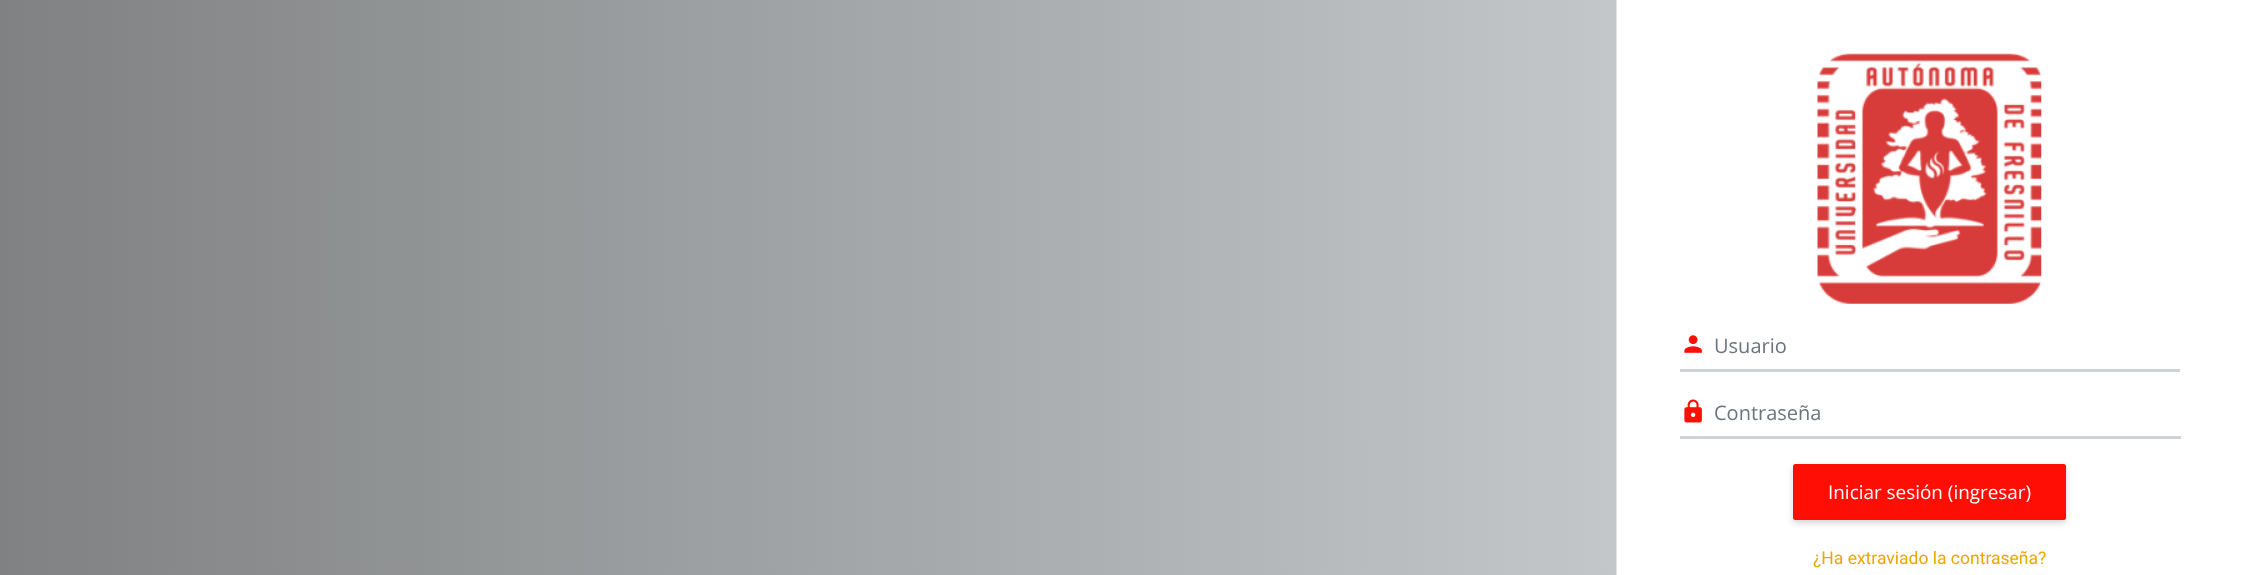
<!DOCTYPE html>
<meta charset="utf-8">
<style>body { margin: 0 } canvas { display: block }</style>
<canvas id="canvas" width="2241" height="575"></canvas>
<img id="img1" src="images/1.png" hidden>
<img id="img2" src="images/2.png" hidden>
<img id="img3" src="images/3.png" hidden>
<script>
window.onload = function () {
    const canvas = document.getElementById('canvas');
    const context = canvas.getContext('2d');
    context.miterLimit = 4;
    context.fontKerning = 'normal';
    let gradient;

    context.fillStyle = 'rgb(255, 255, 255)';
    context.fillRect(0, 0, 2241, 575);
    gradient = context.createLinearGradient(0, 288, 2241, 287);
    gradient.addColorStop(0, 'rgb(127, 129, 130)');
    gradient.addColorStop(1, 'rgb(222, 226, 230)');
    context.fillStyle = gradient;
    context.fillRect(0, 0, 1616, 575);
    context.fillStyle = 'rgb(228, 228, 229)';
    context.fillRect(1616, 0, 1, 575);
    context.drawImage(document.getElementById('img1'), 1817, 53, 225, 251);
    context.drawImage(document.getElementById('img2'), 1684, 335, 18, 18);
    context.fillStyle = 'rgb(207, 211, 214)';
    context.fillRect(1680, 369, 500, 3);
    context.drawImage(document.getElementById('img3'), 1684, 399, 18, 24);
    context.fillRect(1680, 436, 501, 3);
    context.fillStyle = 'rgba(0, 0, 0, 0.16)';
    context.filter = 'blur(3px)';
    context.beginPath();
    context.roundRect(1793, 466, 273, 57, 2.5);
    context.fill();
    context.filter = 'none';
    context.fillStyle = 'rgb(255, 14, 5)';
    context.beginPath();
    context.roundRect(1793, 464, 273, 56, 2.5);
    context.fill();
    context.font = '20px Open Sans';
    context.fillStyle = 'rgb(108, 117, 125)';
    context.fillText('Usuario', 1714, 353);
    context.fillText('Contraseña', 1714, 420);
    context.font = '18.9px Open Sans';
    context.fillStyle = 'rgb(255, 255, 255)';
    context.fillText('Iniciar sesión (ingresar)', 1828, 499);
    context.font = '17.5px Roboto';
    context.fillStyle = 'rgb(235, 166, 0)';
    context.fillText('¿Ha extraviado la contraseña?', 1813, 564);
};
</script>
